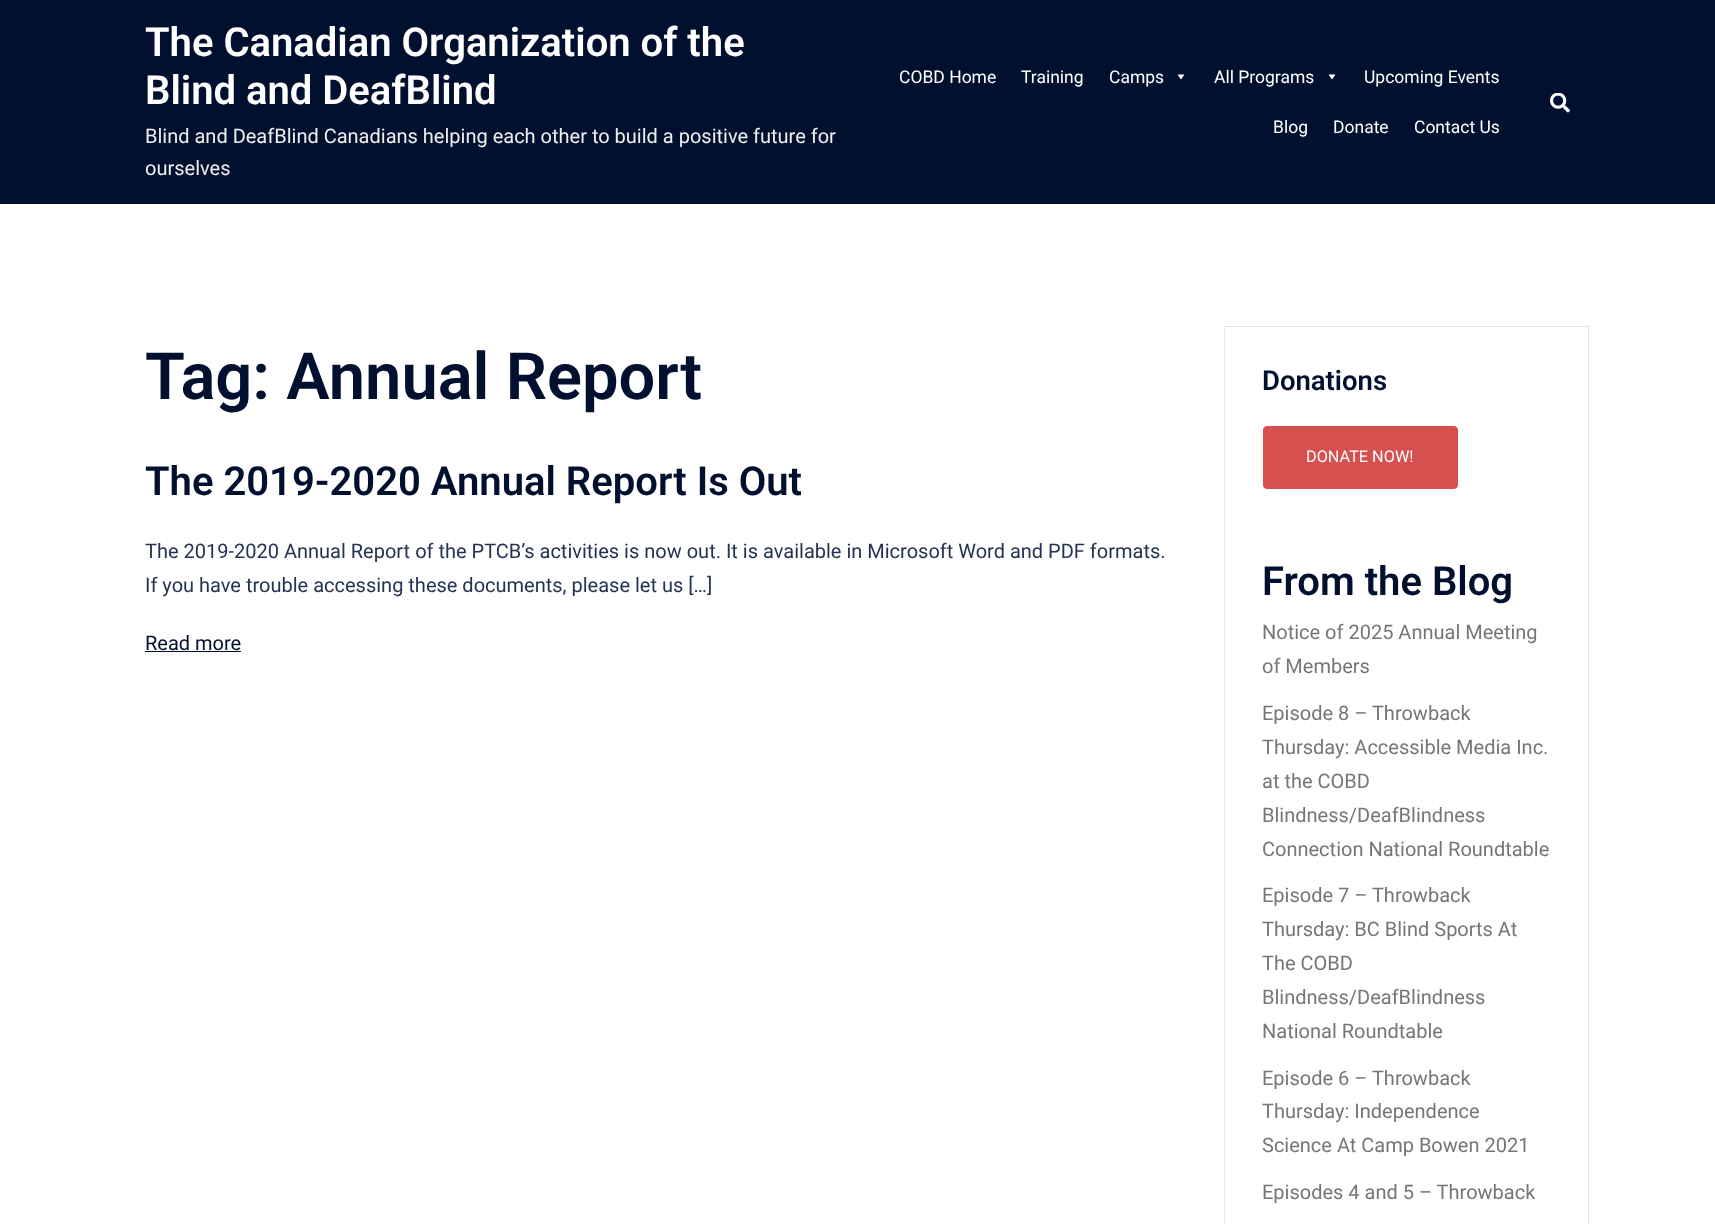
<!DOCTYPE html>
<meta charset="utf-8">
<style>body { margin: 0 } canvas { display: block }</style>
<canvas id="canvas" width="1715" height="1224"></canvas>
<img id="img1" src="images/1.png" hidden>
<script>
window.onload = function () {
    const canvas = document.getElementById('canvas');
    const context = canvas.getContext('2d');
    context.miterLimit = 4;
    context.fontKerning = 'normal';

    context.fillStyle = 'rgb(255, 255, 255)';
    context.fillRect(0, 0, 1715, 1224);
    context.fillStyle = 'rgb(0, 16, 46)';
    context.fillRect(0, 0, 1715, 204);
    context.fillStyle = 'rgb(255, 255, 255)';
    context.beginPath();
    context.moveTo(1184.5, 74.5);
    context.lineTo(1181, 79.5);
    context.lineTo(1177.5, 74.5);
    context.closePath();
    context.fill();
    context.beginPath();
    context.moveTo(1335.5, 74.5);
    context.lineTo(1332, 79.5);
    context.lineTo(1328.5, 74.5);
    context.closePath();
    context.fill();
    context.drawImage(document.getElementById('img1'), 1550, 93, 20, 20);
    context.fillStyle = 'rgb(0, 16, 46)';
    context.fillRect(145, 651, 96, 1);
    context.strokeStyle = 'rgb(230, 230, 230)';
    context.strokeRect(1224.5, 326.5, 364, 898);
    context.fillStyle = 'rgb(214, 80, 80)';
    context.beginPath();
    context.roundRect(1263.5, 426.5, 194, 62, 3.5);
    context.fill();
    context.strokeStyle = 'rgb(214, 80, 80)';
    context.stroke();
    context.font = '600 40px Roboto';
    context.fillStyle = 'rgb(255, 255, 255)';
    context.fillText('The Canadian Organization of the', 145, 56);
    context.fillText('Blind and DeafBlind', 145, 104);
    context.font = '20px Roboto';
    context.fillStyle = 'rgb(239, 239, 239)';
    context.fillText('Blind and DeafBlind Canadians helping each other to build a positive future for', 145, 143);
    context.fillText('ourselves', 145, 175);
    context.font = '17.5px Roboto';
    context.fillStyle = 'rgb(255, 255, 255)';
    context.fillText('COBD Home', 899, 83);
    context.fillText('Training', 1021, 83);
    context.fillText('Camps', 1109, 83);
    context.fillText('All Programs', 1214, 83);
    context.fillText('Upcoming Events', 1364, 83);
    context.fillText('Blog', 1273, 133);
    context.fillText('Donate', 1333, 133);
    context.fillText('Contact Us', 1414, 133);
    context.font = '600 65px Roboto';
    context.fillStyle = 'rgb(0, 16, 46)';
    context.fillText('Tag: Annual Report', 145, 399);
    context.font = '600 40px Roboto';
    context.fillText('The 2019-2020 Annual Report Is Out', 145, 495);
    context.font = '20px Roboto';
    context.fillStyle = 'rgb(35, 52, 82)';
    context.fillText('The 2019-2020 Annual Report of the PTCB’s activities is now out. It is available in Microsoft Word and PDF formats.', 145, 558);
    context.fillText('If you have trouble accessing these documents, please let us […]', 145, 592);
    context.fillStyle = 'rgb(0, 16, 46)';
    context.fillText('Read more', 145, 650);
    context.font = '600 27.5px Roboto';
    context.fillText('Donations', 1262, 390);
    context.font = '16.25px Roboto';
    context.fillStyle = 'rgb(255, 255, 255)';
    context.fillText('DONATE NOW!', 1306, 462);
    context.font = '600 40px Roboto';
    context.fillStyle = 'rgb(0, 16, 46)';
    context.fillText('From the Blog', 1262, 595);
    context.font = '20px Roboto';
    context.fillStyle = 'rgb(118, 118, 118)';
    context.fillText('Notice of 2025 Annual Meeting', 1262, 639);
    context.fillText('of Members', 1262, 673);
    context.fillText('Episode 8 – Throwback', 1262, 720);
    context.fillText('Thursday: Accessible Media Inc.', 1262, 754);
    context.fillText('at the COBD', 1262, 788);
    context.fillText('Blindness/DeafBlindness', 1262, 822);
    context.fillText('Connection National Roundtable', 1262, 856);
    context.fillText('Episode 7 – Throwback', 1262, 902);
    context.fillText('Thursday: BC Blind Sports At', 1262, 936);
    context.fillText('The COBD', 1262, 970);
    context.fillText('Blindness/DeafBlindness', 1262, 1004);
    context.fillText('National Roundtable', 1262, 1038);
    context.fillText('Episode 6 – Throwback', 1262, 1085);
    context.fillText('Thursday: Independence', 1262, 1118);
    context.fillText('Science At Camp Bowen 2021', 1262, 1152);
    context.fillText('Episodes 4 and 5 – Throwback', 1262, 1199);
};
</script>
